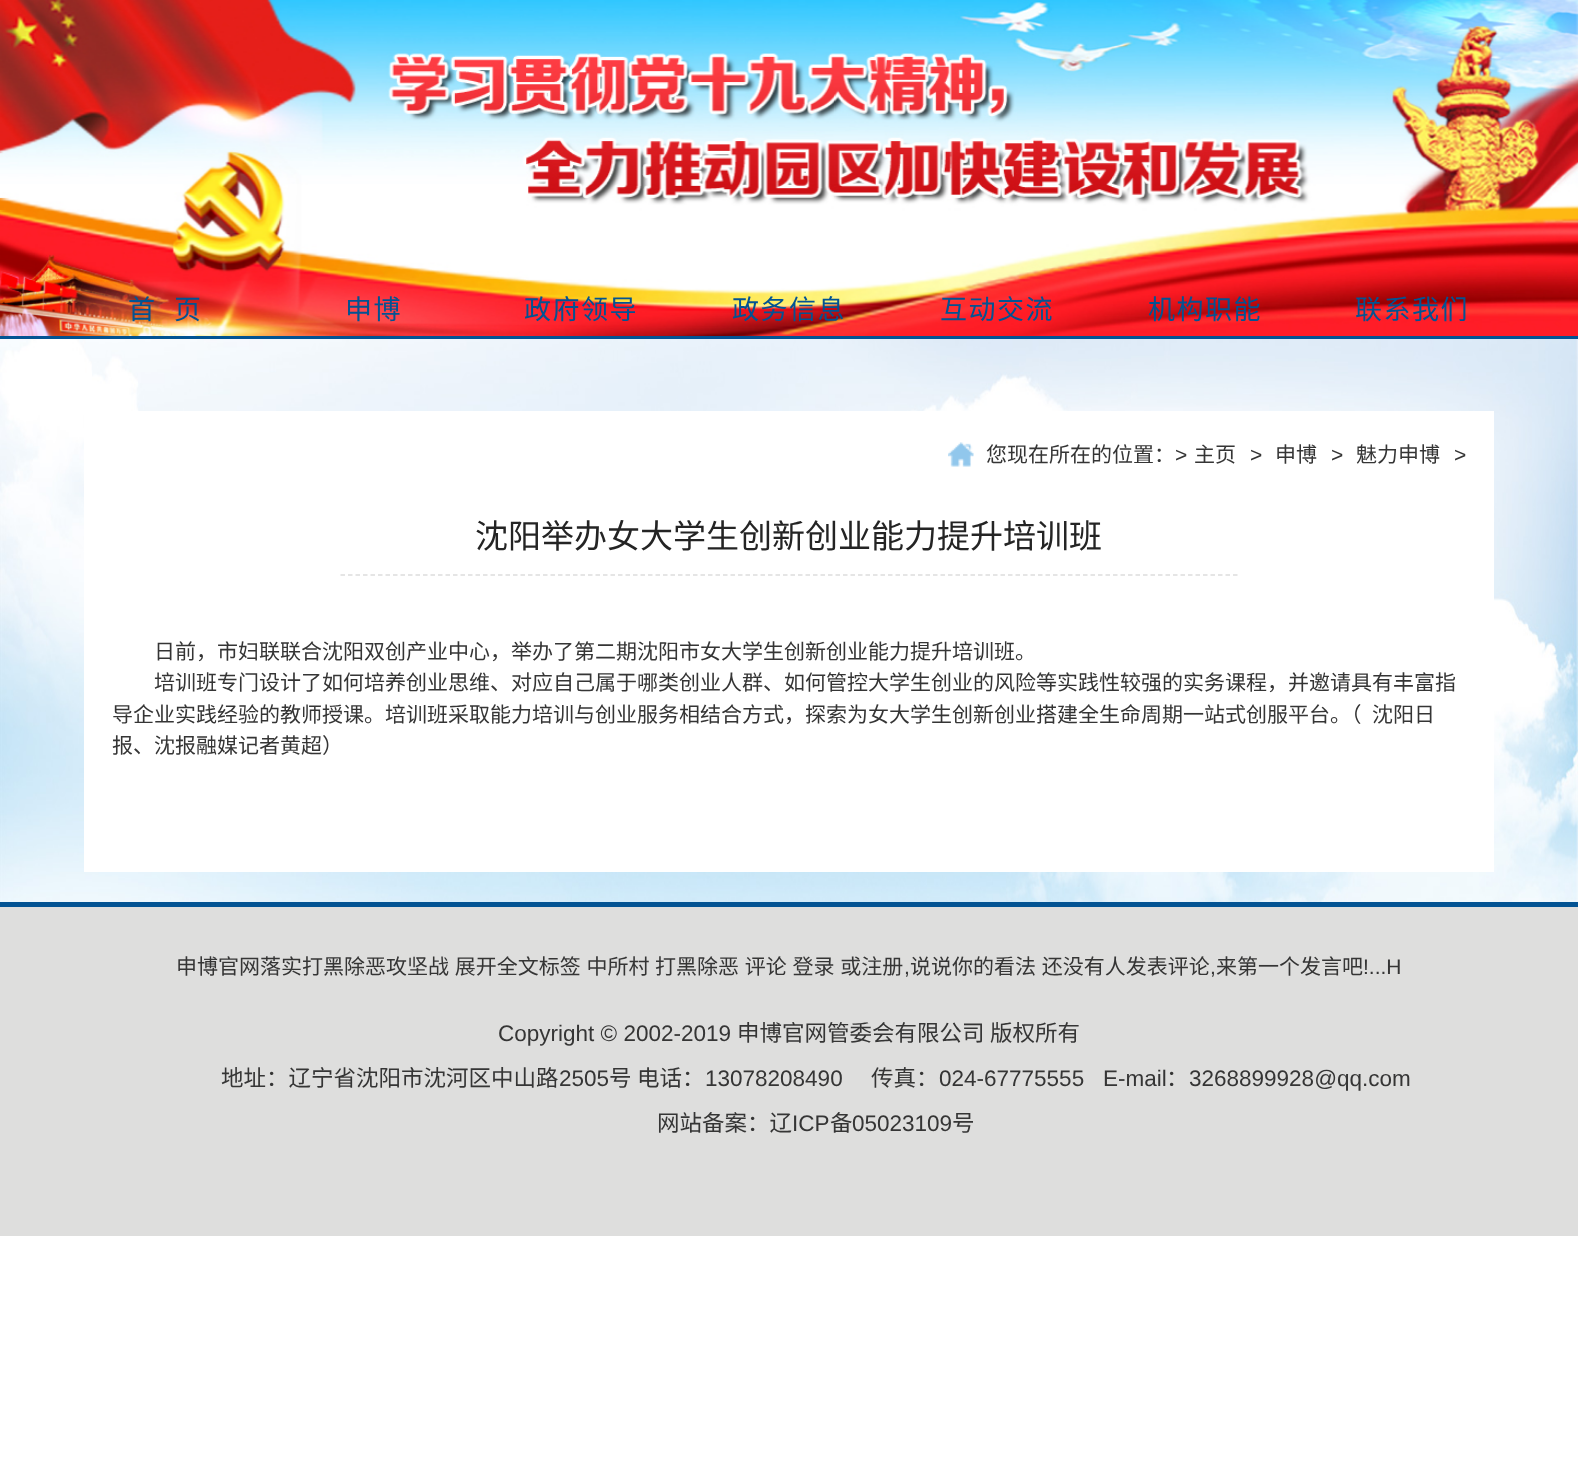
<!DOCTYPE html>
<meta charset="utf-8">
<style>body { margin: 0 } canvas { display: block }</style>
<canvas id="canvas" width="1578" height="1472"></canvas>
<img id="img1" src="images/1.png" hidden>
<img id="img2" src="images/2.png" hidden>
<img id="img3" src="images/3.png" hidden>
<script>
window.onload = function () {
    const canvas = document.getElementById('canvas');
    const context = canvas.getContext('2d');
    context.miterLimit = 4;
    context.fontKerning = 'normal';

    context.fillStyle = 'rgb(255, 255, 255)';
    context.fillRect(0, 0, 1578, 1472);
    context.drawImage(document.getElementById('img1'), 0, 339, 1578, 563);
    context.drawImage(document.getElementById('img2'), 0, 0, 1578, 336);
    context.fillStyle = 'rgb(2, 83, 147)';
    context.fillRect(0, 336, 1578, 3);
    context.fillStyle = 'rgb(255, 255, 255)';
    context.fillRect(84, 411, 1410, 461);
    context.drawImage(document.getElementById('img3'), 948, 442, 26, 25);
    context.beginPath();
    context.moveTo(340.5, 575);
    context.lineTo(1237.5, 575);
    context.strokeStyle = 'rgb(221, 221, 221)';
    context.lineWidth = 1.5;
    context.setLineDash([4.5, 3]);
    context.stroke();
    context.fillStyle = 'rgb(222, 222, 221)';
    context.fillRect(0, 907, 1578, 329);
    context.fillStyle = 'rgb(2, 83, 147)';
    context.fillRect(0, 902, 1578, 5);
    context.letterSpacing = '1.5px';
    context.font = '27px Noto Sans CJK SC';
    context.fillText('首', 128, 319);
    context.fillText('页', 174, 319);
    context.fillText('申博', 345, 319);
    context.fillText('政府领导', 524, 319);
    context.fillText('政务信息', 732, 319);
    context.fillText('互动交流', 940, 319);
    context.fillText('机构职能', 1148, 319);
    context.fillText('联系我们', 1355, 319);
    context.letterSpacing = '0px';
    context.font = '21px Noto Sans CJK SC';
    context.fillStyle = 'rgb(53, 53, 53)';
    context.fillText('您现在所在的位置：', 986, 462);
    context.font = '21px Liberation Sans';
    context.fillText('>', 1175, 462);
    context.font = '21px Noto Sans CJK SC';
    context.fillText('主页', 1194, 462);
    context.font = '21px Liberation Sans';
    context.fillText('>', 1250, 462);
    context.font = '21px Noto Sans CJK SC';
    context.fillText('申博', 1275, 462);
    context.font = '21px Liberation Sans';
    context.fillText('>', 1331, 462);
    context.font = '21px Noto Sans CJK SC';
    context.fillText('魅力申博', 1356, 462);
    context.font = '21px Liberation Sans';
    context.fillText('>', 1454, 462);
    context.font = '33px Noto Sans CJK SC';
    context.fillStyle = 'rgb(36, 36, 36)';
    context.fillText('沈阳举办女大学生创新创业能力提升培训班', 475, 548);
    context.font = '21px Noto Sans CJK SC';
    context.fillStyle = 'rgb(53, 53, 53)';
    context.fillText('日前，市妇联联合沈阳双创产业中心，举办了第二期沈阳市女大学生创新创业能力提升培训班。', 154, 659);
    context.fillText('培训班专门设计了如何培养创业思维、对应自己属于哪类创业人群、如何管控大学生创业的风险等实践性较强的实务课程，并邀请具有丰富指', 154, 690);
    context.fillText('导企业实践经验的教师授课。培训班采取能力培训与创业服务相结合方式，探索为女大学生创新创业搭建全生命周期一站式创服平台。（', 112, 722);
    context.fillText('沈阳日', 1372, 722);
    context.fillText('报、沈报融媒记者黄超）', 112, 753);
    context.wordSpacing = '1px';
    context.fillText('申博官网落实打黑除恶攻坚战 展开全文标签 中所村 打黑除恶 评论 登录 或注册', 176, 974);
    context.wordSpacing = '0px';
    context.font = '21px Liberation Sans';
    context.fillText(',', 904, 974);
    context.wordSpacing = '1px';
    context.font = '21px Noto Sans CJK SC';
    context.fillText('说说你的看法 还没有人发表评论', 910, 974);
    context.wordSpacing = '0px';
    context.font = '21px Liberation Sans';
    context.fillText(',', 1210, 974);
    context.font = '21px Noto Sans CJK SC';
    context.fillText('来第一个发言吧', 1216, 974);
    context.font = '21px Liberation Sans';
    context.fillText('!...H', 1363, 974);
    context.font = '22.5px Liberation Sans';
    context.fillText('Copyright © 2002-2019', 498, 1041);
    context.font = '22.5px Noto Sans CJK SC';
    context.fillText('申博官网管委会有限公司', 737, 1041);
    context.fillText('版权所有', 990, 1041);
    context.fillText('地址：辽宁省沈阳市沈河区中山路', 221, 1086);
    context.font = '22.5px Liberation Sans';
    context.fillText('2505', 559, 1086);
    context.font = '22.5px Noto Sans CJK SC';
    context.fillText('号', 609, 1086);
    context.fillText('电话：', 637, 1086);
    context.font = '22.5px Liberation Sans';
    context.fillText('13078208490', 705, 1086);
    context.font = '22.5px Noto Sans CJK SC';
    context.fillText('传真：', 871, 1086);
    context.font = '22.5px Liberation Sans';
    context.fillText('024-67775555   E-mail', 939, 1086);
    context.font = '22.5px Noto Sans CJK SC';
    context.fillText('：', 1166, 1086);
    context.font = '22.5px Liberation Sans';
    context.fillText('3268899928@qq.com', 1189, 1086);
    context.font = '22.5px Noto Sans CJK SC';
    context.fillText('网站备案：辽', 657, 1131);
    context.font = '22.5px Liberation Sans';
    context.fillText('ICP', 792, 1131);
    context.font = '22.5px Noto Sans CJK SC';
    context.fillText('备', 830, 1131);
    context.font = '22.5px Liberation Sans';
    context.fillText('05023109', 852, 1131);
    context.font = '22.5px Noto Sans CJK SC';
    context.fillText('号', 952, 1131);
};
</script>
